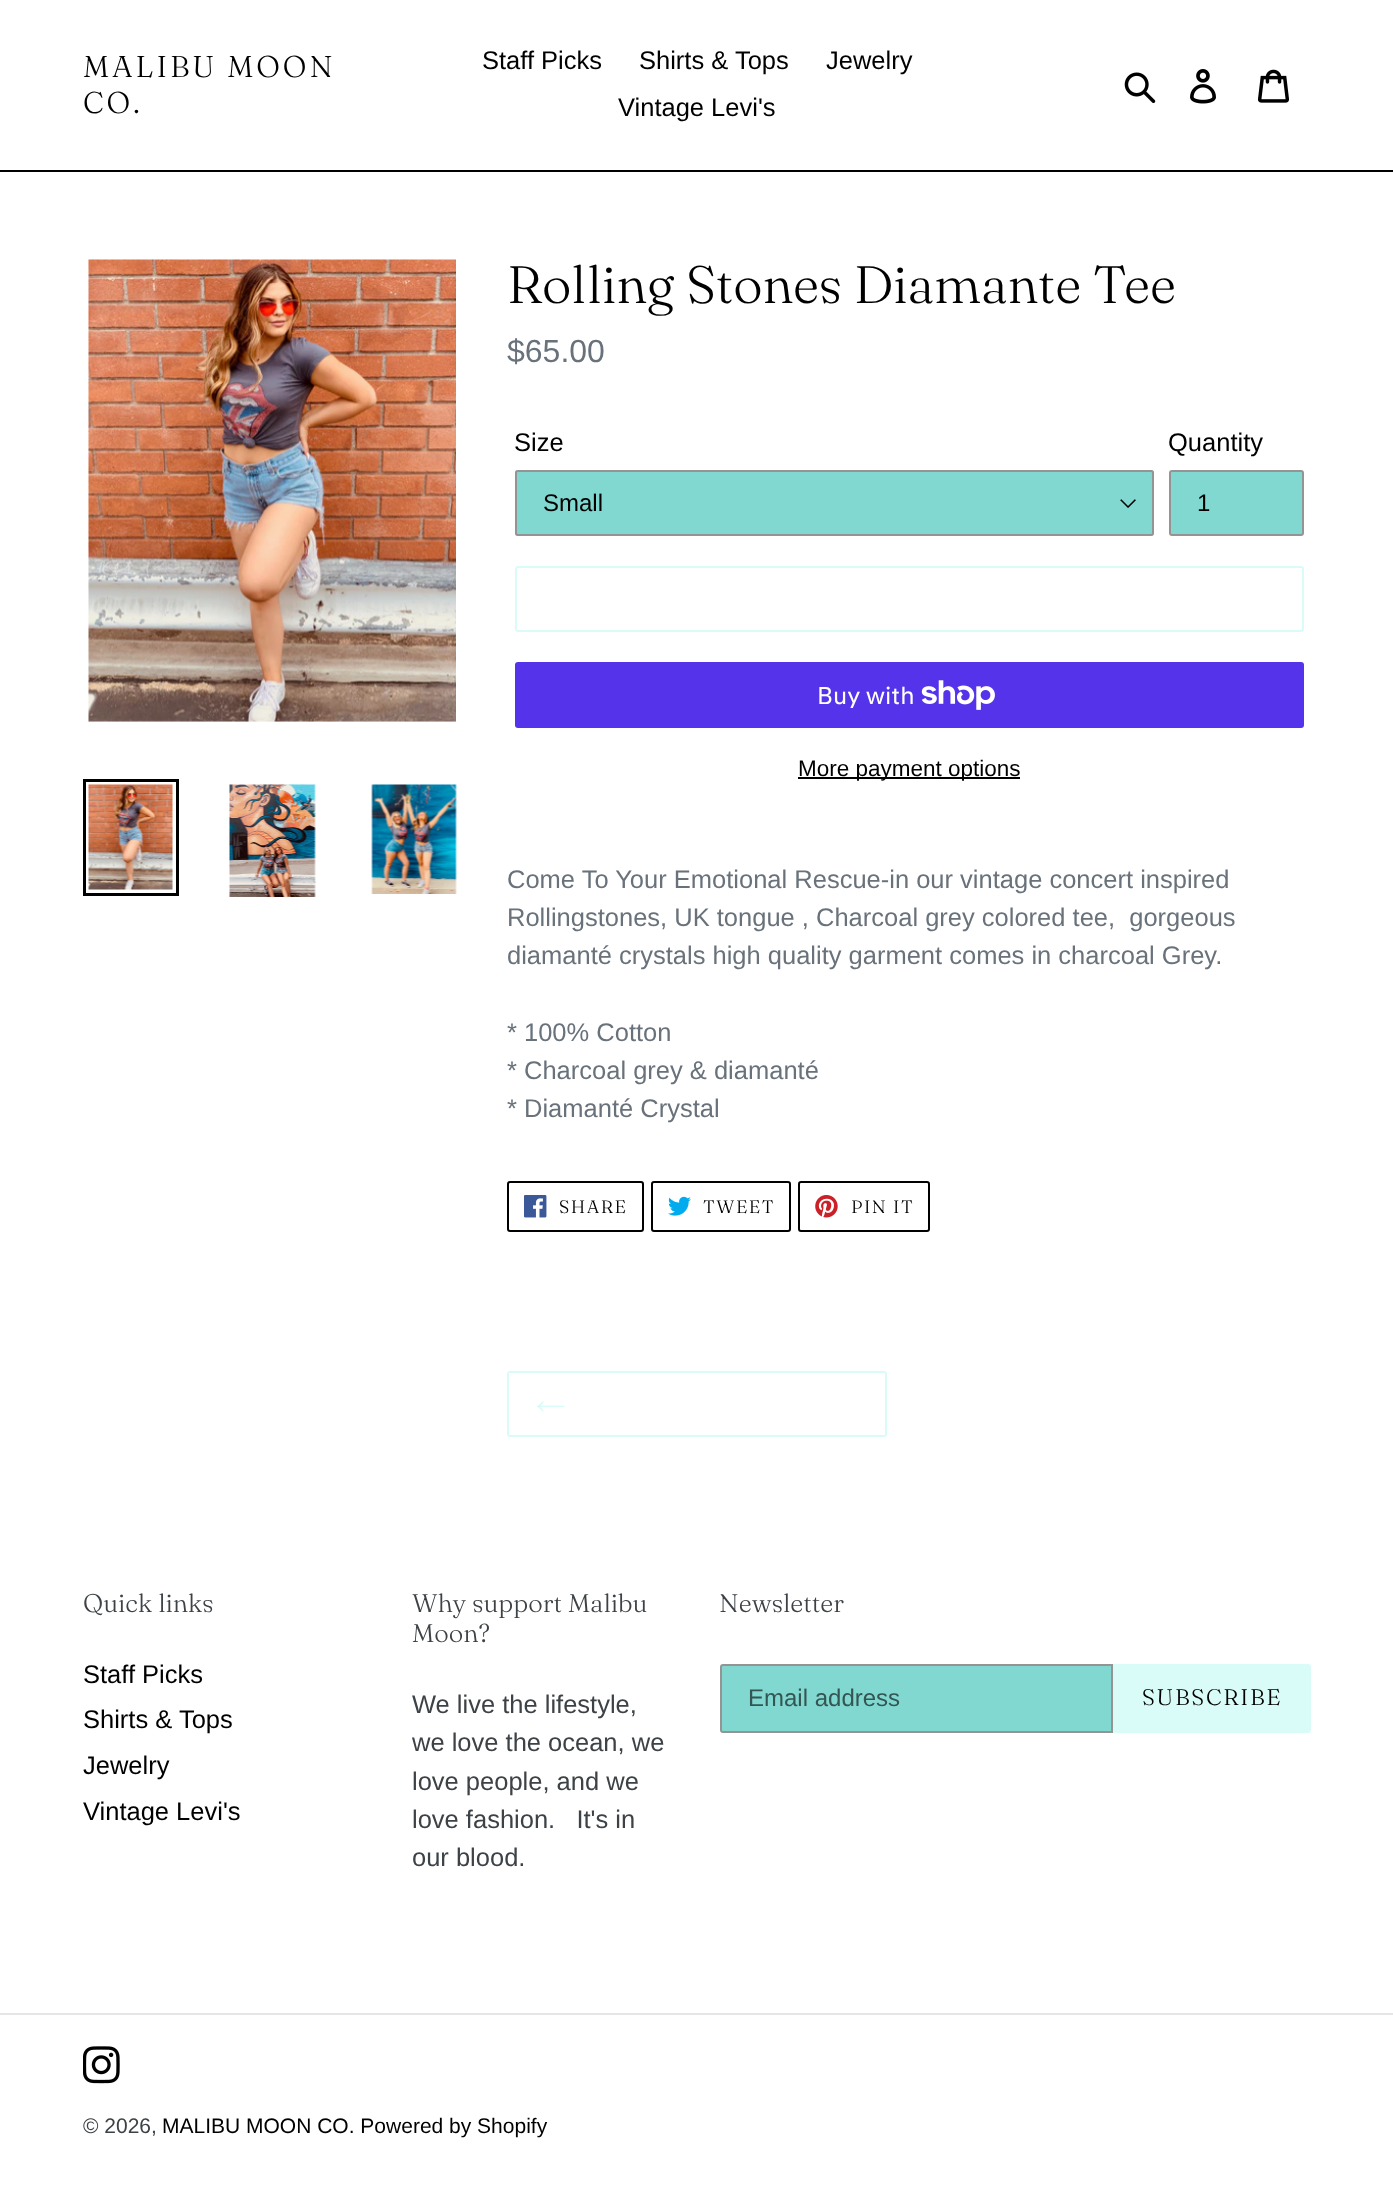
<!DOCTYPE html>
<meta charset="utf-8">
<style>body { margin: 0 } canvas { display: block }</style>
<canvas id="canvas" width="1393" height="2202"></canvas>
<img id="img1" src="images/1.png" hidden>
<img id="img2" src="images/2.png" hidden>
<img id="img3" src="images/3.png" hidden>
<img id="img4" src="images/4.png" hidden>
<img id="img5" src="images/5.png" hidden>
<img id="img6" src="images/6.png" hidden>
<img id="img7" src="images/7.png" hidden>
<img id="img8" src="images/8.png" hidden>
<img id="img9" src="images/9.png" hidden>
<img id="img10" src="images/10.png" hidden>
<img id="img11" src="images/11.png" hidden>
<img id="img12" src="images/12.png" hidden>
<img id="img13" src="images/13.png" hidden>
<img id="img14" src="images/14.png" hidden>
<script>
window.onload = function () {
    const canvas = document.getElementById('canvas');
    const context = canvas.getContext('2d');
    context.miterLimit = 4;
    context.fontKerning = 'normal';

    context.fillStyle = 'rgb(255, 255, 255)';
    context.fillRect(0, 0, 1393, 2202);
    context.fillStyle = 'rgb(0, 0, 0)';
    context.fillRect(0, 170, 1393, 2);
    context.drawImage(document.getElementById('img1'), 1124, 72, 32, 32);
    context.drawImage(document.getElementById('img2'), 1190, 69, 26, 35);
    context.drawImage(document.getElementById('img3'), 1257, 69, 32, 34);
    context.drawImage(document.getElementById('img4'), 88, 259, 368, 463);
    context.strokeStyle = 'rgb(0, 0, 0)';
    context.lineWidth = 3;
    context.strokeRect(84.5, 780.5, 93, 114);
    context.drawImage(document.getElementById('img5'), 88, 784, 85, 106);
    context.drawImage(document.getElementById('img6'), 229, 784, 87, 113);
    context.drawImage(document.getElementById('img7'), 371, 784, 86, 110);
    context.fillStyle = 'rgb(129, 216, 208)';
    context.beginPath();
    context.roundRect(515, 470, 639, 66, 3);
    context.fill();
    context.drawImage(document.getElementById('img8'), 1120, 499, 16, 9);
    context.beginPath();
    context.roundRect(516, 471, 637, 64, 2);
    context.strokeStyle = 'rgb(148, 148, 148)';
    context.lineWidth = 2;
    context.stroke();
    context.beginPath();
    context.roundRect(1170, 471, 133, 64, 2);
    context.fill();
    context.stroke();
    context.beginPath();
    context.roundRect(516, 567, 787, 64, 2);
    context.strokeStyle = 'rgb(217, 252, 248)';
    context.stroke();
    context.fillStyle = 'rgb(84, 51, 235)';
    context.beginPath();
    context.roundRect(515, 662, 789, 66, 3);
    context.fill();
    context.drawImage(document.getElementById('img9'), 921, 680, 74, 30);
    context.fillStyle = 'rgb(0, 0, 0)';
    context.fillRect(798, 777, 222, 2);
    context.beginPath();
    context.roundRect(508, 1182, 135, 49, 2);
    context.strokeStyle = 'rgb(0, 0, 0)';
    context.stroke();
    context.drawImage(document.getElementById('img10'), 524, 1195, 23, 23);
    context.beginPath();
    context.roundRect(652, 1182, 138, 49, 2);
    context.stroke();
    context.drawImage(document.getElementById('img11'), 668, 1196, 23, 20);
    context.beginPath();
    context.roundRect(799, 1182, 130, 49, 2);
    context.stroke();
    context.drawImage(document.getElementById('img12'), 815, 1195, 23, 23);
    context.beginPath();
    context.roundRect(508, 1372, 378, 64, 2);
    context.strokeStyle = 'rgb(217, 252, 248)';
    context.stroke();
    context.drawImage(document.getElementById('img13'), 536, 1401, 29, 11);
    context.fillStyle = 'rgb(129, 216, 208)';
    context.beginPath();
    context.roundRect(721, 1665, 391, 67, [2, 0, 0, 2]);
    context.fill();
    context.strokeStyle = 'rgb(148, 148, 148)';
    context.stroke();
    context.fillStyle = 'rgb(217, 252, 248)';
    context.beginPath();
    context.roundRect(1113, 1664, 198, 69, [0, 3, 3, 0]);
    context.fill();
    context.fillStyle = 'rgb(230, 230, 230)';
    context.fillRect(0, 2013, 1393, 2);
    context.drawImage(document.getElementById('img14'), 83, 2046, 37, 38);
    context.letterSpacing = '3px';
    context.font = '300 30px "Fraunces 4"';
    context.fillStyle = 'rgb(0, 0, 0)';
    context.fillText('MALIBU MOON', 83, 77);
    context.fillText('CO.', 83, 113);
    context.letterSpacing = '0px';
    context.font = '25.5px Liberation Sans';
    context.fillText('Staff Picks', 482, 69);
    context.fillText('Shirts & Tops', 639, 69);
    context.fillText('Jewelry', 826, 69);
    context.fillText('Vintage Levi\'s', 618, 116);
    context.font = '300 52.5px Fraunces';
    context.fillText('Rolling Stones Diamante Tee', 507, 303);
    context.font = '32px Liberation Sans';
    context.fillStyle = 'rgb(105, 114, 123)';
    context.fillText('$65.00', 507, 362);
    context.font = '25.5px Liberation Sans';
    context.fillStyle = 'rgb(0, 0, 0)';
    context.fillText('Size', 514, 451);
    context.font = '24px Liberation Sans';
    context.fillText('Small', 543, 511);
    context.font = '25.5px Liberation Sans';
    context.fillText('Quantity', 1168, 451);
    context.font = '24px Liberation Sans';
    context.fillText('1', 1197, 511);
    context.font = '24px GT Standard';
    context.fillStyle = 'rgb(255, 255, 255)';
    context.fillText('Buy with', 817, 704);
    context.font = '22.5px Liberation Sans';
    context.fillStyle = 'rgb(0, 0, 0)';
    context.fillText('More payment options', 798, 776);
    context.font = '25.5px Liberation Sans';
    context.fillStyle = 'rgb(105, 114, 123)';
    context.fillText('Come To Your Emotional Rescue-in our vintage concert inspired', 507, 888);
    context.fillText('Rollingstones, UK tongue , Charcoal grey colored tee,  gorgeous', 507, 926);
    context.fillText('diamanté crystals high quality garment comes in charcoal Grey.', 507, 964);
    context.fillText('* 100% Cotton', 507, 1041);
    context.fillText('* Charcoal grey & diamanté', 507, 1079);
    context.fillText('* Diamanté Crystal', 507, 1117);
    context.letterSpacing = '1.5px';
    context.font = '300 18px "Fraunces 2"';
    context.fillStyle = 'rgb(0, 0, 0)';
    context.fillText('SHARE', 559, 1213);
    context.fillText('TWEET', 703, 1213);
    context.fillText('PIN IT', 851, 1213);
    context.letterSpacing = '0px';
    context.font = '300 25.5px "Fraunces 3"';
    context.fillStyle = 'rgb(61, 66, 70)';
    context.fillText('Quick links', 83, 1612);
    context.font = '25.5px Liberation Sans';
    context.fillStyle = 'rgb(0, 0, 0)';
    context.fillText('Staff Picks', 83, 1683);
    context.fillText('Shirts & Tops', 83, 1728);
    context.fillText('Jewelry', 83, 1774);
    context.fillText('Vintage Levi\'s', 83, 1820);
    context.font = '300 25.5px "Fraunces 3"';
    context.fillStyle = 'rgb(61, 66, 70)';
    context.fillText('Why support Malibu', 412, 1612);
    context.fillText('Moon?', 412, 1642);
    context.font = '25.5px Liberation Sans';
    context.fillText('We live the lifestyle,', 412, 1713);
    context.fillText('we love the ocean, we', 412, 1751);
    context.fillText('love people, and we', 412, 1790);
    context.fillText('love fashion.   It\'s in', 412, 1828);
    context.fillText('our blood.', 412, 1866);
    context.font = '300 25.5px "Fraunces 3"';
    context.fillText('Newsletter', 719, 1612);
    context.font = '24px Liberation Sans';
    context.fillStyle = 'rgb(52, 86, 83)';
    context.fillText('Email address', 748, 1706);
    context.letterSpacing = '1.75px';
    context.font = '300 22.5px "Fraunces 2"';
    context.fillStyle = 'rgb(0, 0, 0)';
    context.fillText('SUBSCRIBE', 1142, 1705);
    context.letterSpacing = '0px';
    context.font = '21px Liberation Sans';
    context.fillStyle = 'rgb(61, 66, 70)';
    context.fillText('© 2026,', 83, 2133);
    context.fillStyle = 'rgb(0, 0, 0)';
    context.fillText('MALIBU MOON CO. Powered by Shopify', 162, 2133);
};
</script>
